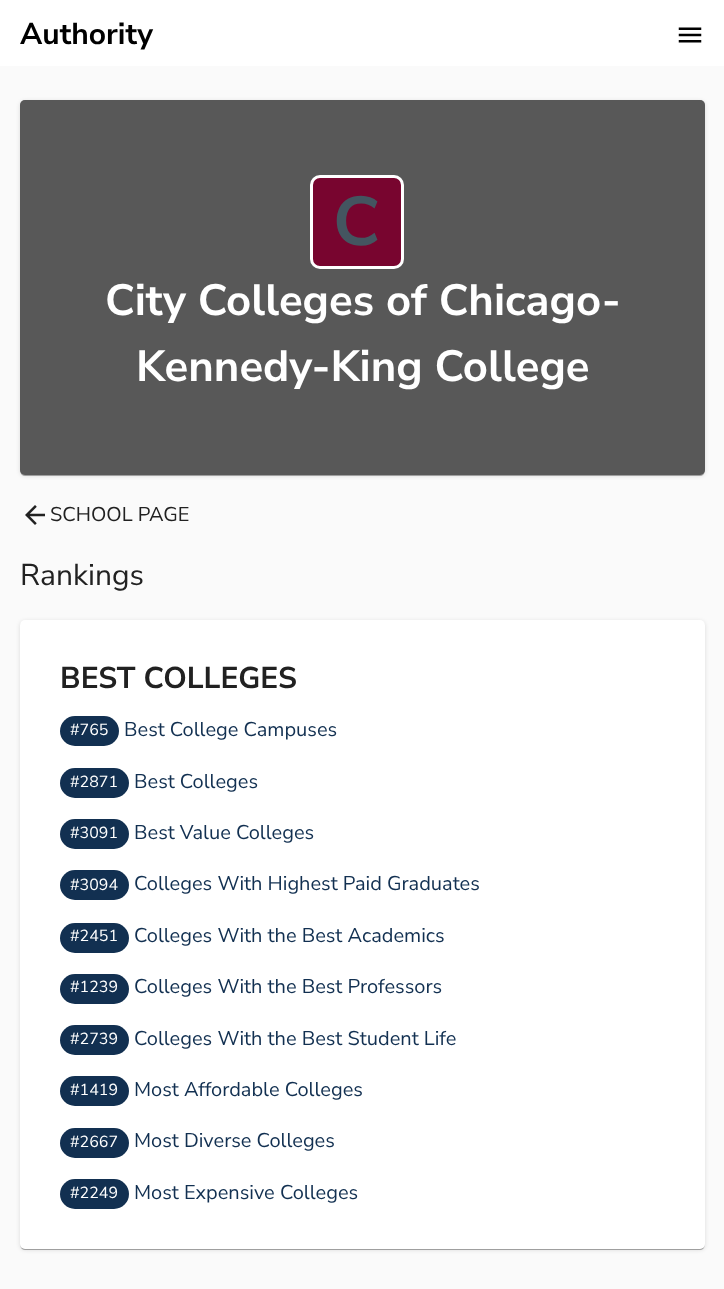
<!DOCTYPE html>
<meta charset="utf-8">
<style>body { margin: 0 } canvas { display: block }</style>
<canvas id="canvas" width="724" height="1289"></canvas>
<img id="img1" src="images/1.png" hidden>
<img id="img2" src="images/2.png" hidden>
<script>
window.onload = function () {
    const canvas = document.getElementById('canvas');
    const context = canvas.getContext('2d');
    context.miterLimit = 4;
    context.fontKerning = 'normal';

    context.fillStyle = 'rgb(250, 250, 250)';
    context.fillRect(0, 0, 724, 1289);
    context.fillStyle = 'rgb(255, 255, 255)';
    context.fillRect(0, 0, 724, 66);
    context.drawImage(document.getElementById('img1'), 678, 27, 24, 16);
    context.fillStyle = 'rgba(0, 0, 0, 0.12)';
    context.filter = 'blur(2px)';
    context.beginPath();
    context.roundRect(20, 101, 685, 375, 5);
    context.fill();
    context.filter = 'none';
    context.fillStyle = 'rgba(0, 0, 0, 0.14)';
    context.filter = 'blur(0.5px)';
    context.beginPath();
    context.roundRect(20, 101, 685, 375, 5);
    context.fill();
    context.filter = 'none';
    context.fillStyle = 'rgba(0, 0, 0, 0.2)';
    context.filter = 'blur(0.5px)';
    context.beginPath();
    context.roundRect(21, 104, 683, 372, 4);
    context.fill();
    context.filter = 'none';
    context.fillStyle = 'rgb(170, 170, 170)';
    context.beginPath();
    context.roundRect(20, 100, 685, 375, 5);
    context.fill();
    context.fillStyle = 'rgba(6, 5, 6, 0.5)';
    context.beginPath();
    context.roundRect(20, 100, 685, 375, 5);
    context.fill();
    context.fillStyle = 'rgb(120, 5, 47)';
    context.beginPath();
    context.roundRect(311.5, 176.5, 91, 91, 8.5);
    context.fill();
    context.strokeStyle = 'rgb(255, 255, 255)';
    context.lineWidth = 3;
    context.stroke();
    context.drawImage(document.getElementById('img2'), 25, 505, 20, 20);
    context.fillStyle = 'rgba(0, 0, 0, 0.12)';
    context.filter = 'blur(2px)';
    context.beginPath();
    context.roundRect(20, 621, 685, 629, 5);
    context.fill();
    context.filter = 'none';
    context.fillStyle = 'rgba(0, 0, 0, 0.14)';
    context.filter = 'blur(0.5px)';
    context.beginPath();
    context.roundRect(20, 621, 685, 629, 5);
    context.fill();
    context.filter = 'none';
    context.fillStyle = 'rgba(0, 0, 0, 0.2)';
    context.filter = 'blur(0.5px)';
    context.beginPath();
    context.roundRect(21, 624, 683, 626, 4);
    context.fill();
    context.filter = 'none';
    context.fillStyle = 'rgb(255, 255, 255)';
    context.beginPath();
    context.roundRect(20, 620, 685, 629, 5);
    context.fill();
    context.fillStyle = 'rgb(18, 48, 81)';
    context.beginPath();
    context.roundRect(60, 716, 59, 30, 15);
    context.fill();
    context.beginPath();
    context.roundRect(60, 768, 69, 30, 15);
    context.fill();
    context.beginPath();
    context.roundRect(60, 819, 69, 30, 15);
    context.fill();
    context.beginPath();
    context.roundRect(60, 870, 69, 30, 15);
    context.fill();
    context.beginPath();
    context.roundRect(60, 923, 69, 30, 15);
    context.fill();
    context.beginPath();
    context.roundRect(60, 974, 69, 30, 15);
    context.fill();
    context.beginPath();
    context.roundRect(60, 1025, 69, 30, 15);
    context.fill();
    context.beginPath();
    context.roundRect(60, 1076, 69, 30, 15);
    context.fill();
    context.beginPath();
    context.roundRect(60, 1128, 69, 30, 15);
    context.fill();
    context.beginPath();
    context.roundRect(60, 1179, 69, 30, 15);
    context.fill();
    context.font = 'bold 30px Nunito Sans';
    context.fillStyle = 'rgb(0, 0, 0)';
    context.fillText('Authority', 20, 44);
    context.font = 'bold 69px Nunito Sans';
    context.fillStyle = 'rgb(68, 85, 96)';
    context.fillText('C', 333, 245);
    context.font = 'bold 43.75px Nunito Sans';
    context.fillStyle = 'rgb(255, 255, 255)';
    context.fillText('City Colleges of Chicago-', 105, 315);
    context.fillText('Kennedy-King College', 136, 381);
    context.font = '20px Nunito Sans';
    context.fillStyle = 'rgb(33, 33, 33)';
    context.fillText('SCHOOL PAGE', 50, 521);
    context.font = '30px Nunito Sans';
    context.fillText('Rankings', 20, 585);
    context.font = 'bold 30px Nunito Sans';
    context.fillText('BEST COLLEGES', 60, 688);
    context.font = '16px Nunito Sans';
    context.fillStyle = 'rgb(255, 255, 255)';
    context.fillText('#765', 70, 735);
    context.font = '20px Nunito Sans';
    context.fillStyle = 'rgb(18, 48, 81)';
    context.fillText('Best College Campuses', 124, 736);
    context.font = '16px Nunito Sans';
    context.fillStyle = 'rgb(255, 255, 255)';
    context.fillText('#2871', 70, 787);
    context.font = '20px Nunito Sans';
    context.fillStyle = 'rgb(18, 48, 81)';
    context.fillText('Best Colleges', 134, 788);
    context.font = '16px Nunito Sans';
    context.fillStyle = 'rgb(255, 255, 255)';
    context.fillText('#3091', 70, 838);
    context.font = '20px Nunito Sans';
    context.fillStyle = 'rgb(18, 48, 81)';
    context.fillText('Best Value Colleges', 134, 839);
    context.font = '16px Nunito Sans';
    context.fillStyle = 'rgb(255, 255, 255)';
    context.fillText('#3094', 70, 890);
    context.font = '20px Nunito Sans';
    context.fillStyle = 'rgb(18, 48, 81)';
    context.fillText('Colleges With Highest Paid Graduates', 134, 890);
    context.font = '16px Nunito Sans';
    context.fillStyle = 'rgb(255, 255, 255)';
    context.fillText('#2451', 70, 941);
    context.font = '20px Nunito Sans';
    context.fillStyle = 'rgb(18, 48, 81)';
    context.fillText('Colleges With the Best Academics', 134, 942);
    context.font = '16px Nunito Sans';
    context.fillStyle = 'rgb(255, 255, 255)';
    context.fillText('#1239', 70, 992);
    context.font = '20px Nunito Sans';
    context.fillStyle = 'rgb(18, 48, 81)';
    context.fillText('Colleges With the Best Professors', 134, 993);
    context.font = '16px Nunito Sans';
    context.fillStyle = 'rgb(255, 255, 255)';
    context.fillText('#2739', 70, 1044);
    context.font = '20px Nunito Sans';
    context.fillStyle = 'rgb(18, 48, 81)';
    context.fillText('Colleges With the Best Student Life', 134, 1045);
    context.font = '16px Nunito Sans';
    context.fillStyle = 'rgb(255, 255, 255)';
    context.fillText('#1419', 70, 1095);
    context.font = '20px Nunito Sans';
    context.fillStyle = 'rgb(18, 48, 81)';
    context.fillText('Most Affordable Colleges', 134, 1096);
    context.font = '16px Nunito Sans';
    context.fillStyle = 'rgb(255, 255, 255)';
    context.fillText('#2667', 70, 1147);
    context.font = '20px Nunito Sans';
    context.fillStyle = 'rgb(18, 48, 81)';
    context.fillText('Most Diverse Colleges', 134, 1147);
    context.font = '16px Nunito Sans';
    context.fillStyle = 'rgb(255, 255, 255)';
    context.fillText('#2249', 70, 1198);
    context.font = '20px Nunito Sans';
    context.fillStyle = 'rgb(18, 48, 81)';
    context.fillText('Most Expensive Colleges', 134, 1199);
};
</script>
